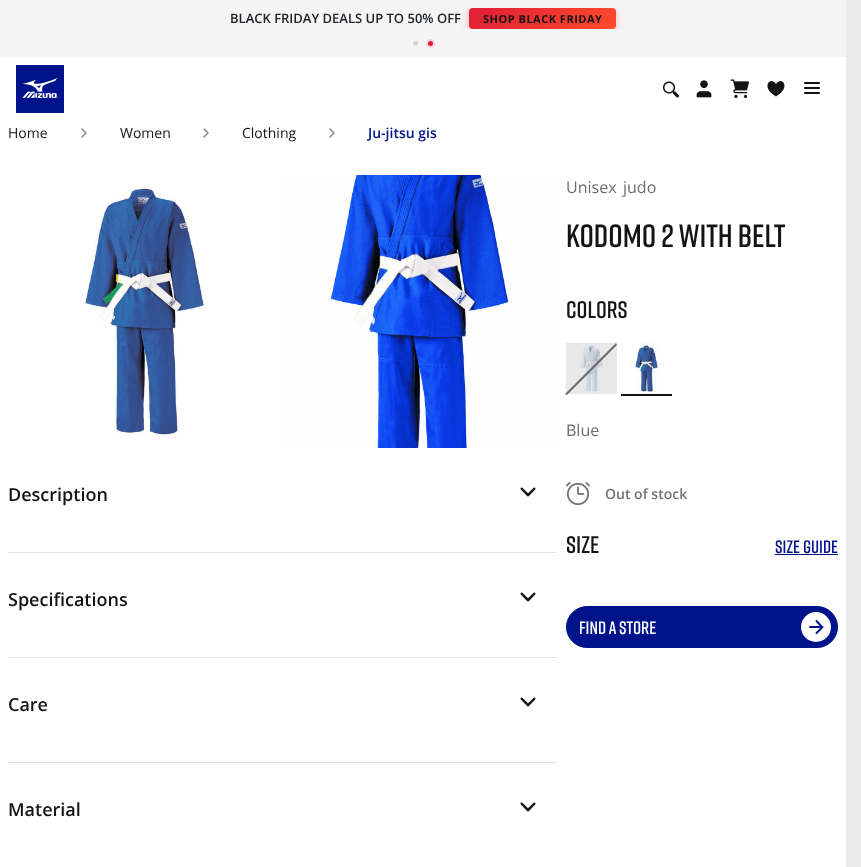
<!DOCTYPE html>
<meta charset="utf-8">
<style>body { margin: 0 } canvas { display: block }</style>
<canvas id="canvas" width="861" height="867"></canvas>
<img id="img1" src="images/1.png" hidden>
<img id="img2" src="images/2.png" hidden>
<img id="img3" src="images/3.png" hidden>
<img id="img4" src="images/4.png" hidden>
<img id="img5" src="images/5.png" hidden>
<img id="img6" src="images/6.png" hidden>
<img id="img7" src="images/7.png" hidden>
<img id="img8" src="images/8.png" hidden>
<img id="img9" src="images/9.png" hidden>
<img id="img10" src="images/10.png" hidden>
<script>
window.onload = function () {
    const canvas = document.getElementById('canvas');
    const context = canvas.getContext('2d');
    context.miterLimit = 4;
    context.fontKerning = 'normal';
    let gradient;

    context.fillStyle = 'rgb(235, 235, 235)';
    context.fillRect(0, 0, 861, 867);
    context.fillStyle = 'rgb(255, 255, 255)';
    context.fillRect(0, 57, 846, 810);
    context.fillStyle = 'rgb(245, 245, 245)';
    context.fillRect(0, 0, 846, 57);
    context.save();
    context.beginPath();
    context.rect(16, 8, 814, 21);
    context.clip();
    context.fillStyle = 'rgba(224, 30, 55, 0.3)';
    context.filter = 'blur(4px)';
    context.beginPath();
    context.roundRect(469, 10, 147, 21, 4);
    context.fill();
    context.filter = 'none';
    context.restore();
    gradient = context.createLinearGradient(501, -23, 585, 60);
    gradient.addColorStop(0, 'rgb(224, 30, 55)');
    gradient.addColorStop(1, 'rgb(255, 75, 43)');
    context.fillStyle = gradient;
    context.beginPath();
    context.roundRect(469, 8, 147, 21, 4);
    context.fill();
    context.fillStyle = 'rgb(209, 213, 219)';
    context.beginPath();
    context.arc(415.5, 43.5, 2.5, 0, 2 * Math.PI);
    context.fill();
    context.beginPath();
    context.arc(430.5, 43.5, 3.5, 0, 2 * Math.PI);
    context.strokeStyle = 'rgb(242, 213, 217)';
    context.lineWidth = 2;
    context.stroke();
    context.fillStyle = 'rgb(224, 30, 55)';
    context.beginPath();
    context.arc(430.5, 43.5, 2.5, 0, 2 * Math.PI);
    context.fill();
    context.drawImage(document.getElementById('img1'), 16, 65, 48, 48);
    context.drawImage(document.getElementById('img2'), 663, 81, 16, 17);
    context.drawImage(document.getElementById('img3'), 696, 80, 16, 18);
    context.drawImage(document.getElementById('img4'), 730, 79, 19, 20);
    context.fillStyle = 'rgb(20, 20, 20)';
    context.beginPath();
    context.moveTo(776, 96.5);
    context.bezierCurveTo(792, 87.5, 781.5, 75.5, 776, 84);
    context.bezierCurveTo(770.5, 75.5, 760, 87.5, 776, 96.5);
    context.closePath();
    context.fill('evenodd');
    context.beginPath();
    context.roundRect(804, 82, 16, 2, 1);
    context.fill();
    context.beginPath();
    context.roundRect(804, 87, 16, 2, 1);
    context.fill();
    context.beginPath();
    context.roundRect(804, 92, 16, 2, 1);
    context.fill();
    context.beginPath();
    context.moveTo(82, 137);
    context.lineTo(86, 133);
    context.lineTo(82, 129);
    context.strokeStyle = 'rgb(134, 134, 134)';
    context.lineWidth = 1.5;
    context.lineCap = 'round';
    context.lineJoin = 'round';
    context.stroke();
    context.beginPath();
    context.moveTo(204, 137);
    context.lineTo(208, 133);
    context.lineTo(204, 129);
    context.stroke();
    context.beginPath();
    context.moveTo(330, 137);
    context.lineTo(334, 133);
    context.lineTo(330, 129);
    context.stroke();
    context.drawImage(document.getElementById('img5'), 8, 175, 273, 273);
    context.drawImage(document.getElementById('img6'), 283, 175, 273, 273);
    context.fillStyle = 'rgb(226, 226, 226)';
    context.fillRect(8, 552, 548, 1);
    context.drawImage(document.getElementById('img7'), 520, 487, 16, 10);
    context.fillRect(8, 657, 548, 1);
    context.drawImage(document.getElementById('img7'), 520, 592, 16, 10);
    context.fillRect(8, 762, 548, 1);
    context.drawImage(document.getElementById('img7'), 520, 697, 16, 10);
    context.drawImage(document.getElementById('img7'), 520, 802, 16, 10);
    context.drawImage(document.getElementById('img8'), 566, 343, 51, 51);
    context.fillStyle = 'rgb(108, 108, 108)';
    context.beginPath();
    context.moveTo(565, 394);
    context.lineTo(616, 343);
    context.lineTo(617, 345);
    context.lineTo(567, 395);
    context.closePath();
    context.fill();
    context.drawImage(document.getElementById('img9'), 621, 343, 51, 51);
    context.fillStyle = 'rgb(20, 20, 20)';
    context.fillRect(621, 394, 51, 2);
    context.drawImage(document.getElementById('img10'), 566, 482, 24, 24);
    context.fillStyle = 'rgb(0, 19, 138)';
    context.fillRect(775, 554, 63, 1);
    context.beginPath();
    context.roundRect(566.5, 606.5, 271, 41, 20.5);
    context.fill();
    context.strokeStyle = 'rgb(0, 19, 138)';
    context.lineWidth = 1;
    context.lineJoin = 'miter';
    context.stroke();
    context.fillStyle = 'rgb(255, 255, 255)';
    context.beginPath();
    context.arc(816, 627, 15, 0, 2 * Math.PI);
    context.fill();
    context.beginPath();
    context.moveTo(810, 627);
    context.lineTo(822, 627);
    context.moveTo(822, 627);
    context.lineTo(816.5, 621);
    context.moveTo(822.5, 627);
    context.lineTo(816.5, 633);
    context.lineWidth = 1.9;
    context.lineJoin = 'round';
    context.stroke();
    context.font = '600 13px Open Sans';
    context.fillStyle = 'rgb(33, 37, 41)';
    context.fillText('BLACK FRIDAY DEALS UP TO 50% OFF', 230, 23);
    context.letterSpacing = '0.5px';
    context.font = 'bold 11px Open Sans';
    context.fillStyle = 'rgb(20, 20, 20)';
    context.fillText('SHOP BLACK FRIDAY', 483, 23);
    context.letterSpacing = '0px';
    context.font = '14px Open Sans';
    context.fillText('Home', 8, 138);
    context.fillText('Women', 120, 138);
    context.fillText('Clothing', 242, 138);
    context.font = '600 14px Open Sans';
    context.fillStyle = 'rgb(0, 19, 138)';
    context.fillText('Ju-jitsu gis', 368, 138);
    context.font = '600 18px Open Sans';
    context.fillStyle = 'rgb(20, 20, 20)';
    context.fillText('Description', 8, 501);
    context.fillText('Specifications', 8, 606);
    context.fillText('Care', 8, 711);
    context.fillText('Material', 8, 816);
    context.font = '16px Open Sans';
    context.fillStyle = 'rgb(108, 108, 108)';
    context.fillText('Unisex', 566, 193);
    context.fillText('judo', 623, 193);
    context.font = '600 32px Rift';
    context.fillStyle = 'rgb(20, 20, 20)';
    context.fillText('KODOMO 2 WITH BELT', 566, 247);
    context.font = '600 24px Rift';
    context.fillText('COLORS', 566, 318);
    context.font = '16px Open Sans';
    context.fillStyle = 'rgb(108, 108, 108)';
    context.fillText('Blue', 566, 436);
    context.font = '600 14px Open Sans';
    context.fillStyle = 'rgb(114, 114, 114)';
    context.fillText('Out of stock', 605, 499);
    context.font = '600 24px Rift';
    context.fillStyle = 'rgb(20, 20, 20)';
    context.fillText('SIZE', 566, 553);
    context.font = '600 18px Rift';
    context.fillStyle = 'rgb(0, 19, 138)';
    context.fillText('SIZE GUIDE', 775, 553);
    context.fillStyle = 'rgb(255, 255, 255)';
    context.fillText('FIND A STORE', 579, 634);
};
</script>
